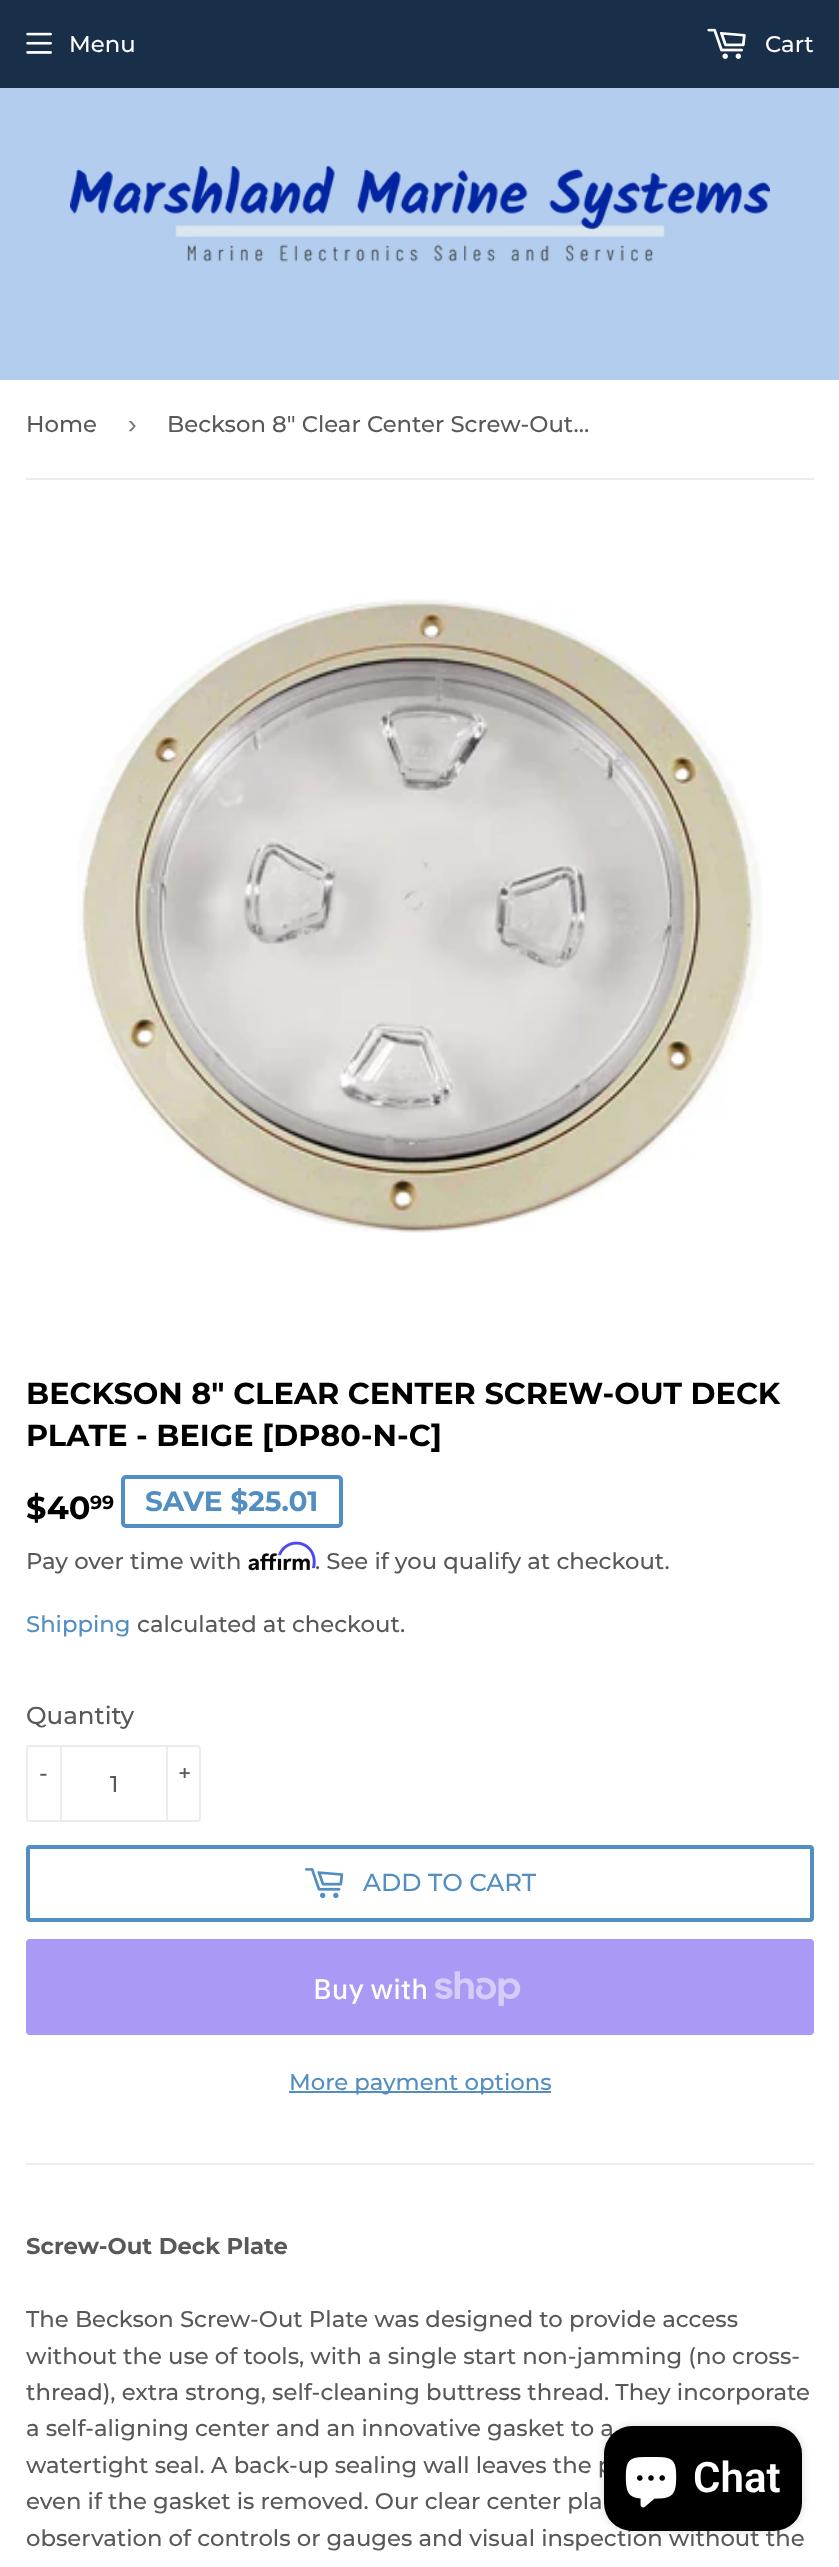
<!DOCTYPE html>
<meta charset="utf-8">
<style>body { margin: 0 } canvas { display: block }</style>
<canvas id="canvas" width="839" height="2567"></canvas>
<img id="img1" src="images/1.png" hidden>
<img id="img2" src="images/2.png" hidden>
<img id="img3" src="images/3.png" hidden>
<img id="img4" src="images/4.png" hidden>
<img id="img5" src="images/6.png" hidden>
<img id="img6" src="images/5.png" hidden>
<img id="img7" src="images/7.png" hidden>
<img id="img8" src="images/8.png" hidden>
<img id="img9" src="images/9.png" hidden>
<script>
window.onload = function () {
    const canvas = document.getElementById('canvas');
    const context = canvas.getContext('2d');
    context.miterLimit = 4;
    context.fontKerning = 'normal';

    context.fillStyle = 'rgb(255, 255, 255)';
    context.fillRect(0, 0, 839, 2567);
    context.fillStyle = 'rgb(24, 46, 73)';
    context.fillRect(0, 0, 839, 88);
    context.drawImage(document.getElementById('img1'), 26, 32, 26, 22);
    context.drawImage(document.getElementById('img2'), 707, 28, 39, 31);
    context.fillStyle = 'rgb(178, 205, 238)';
    context.fillRect(0, 88, 839, 292);
    context.drawImage(document.getElementById('img3'), 70, 166, 700, 96);
    context.fillStyle = 'rgb(236, 236, 236)';
    context.fillRect(26, 478, 788, 2);
    context.drawImage(document.getElementById('img4'), 77, 599, 686, 634);
    context.beginPath();
    context.roundRect(123, 1477, 218, 49, 3);
    context.strokeStyle = 'rgb(82, 142, 193)';
    context.lineWidth = 4;
    context.stroke();
    context.drawImage(document.getElementById('img5'), 248, 1553, 62, 18);
    context.drawImage(document.getElementById('img6'), 278, 1541, 38, 28);
    context.beginPath();
    context.roundRect(27, 1746, 173, 75, 3);
    context.strokeStyle = 'rgb(236, 236, 236)';
    context.lineWidth = 2;
    context.stroke();
    context.fillRect(60, 1745, 2, 77);
    context.fillRect(166, 1745, 2, 77);
    context.beginPath();
    context.roundRect(28, 1847, 784, 73, 2);
    context.strokeStyle = 'rgb(82, 142, 193)';
    context.lineWidth = 4;
    context.stroke();
    context.drawImage(document.getElementById('img7'), 304, 1868, 40, 31);
    context.fillStyle = 'rgb(170, 153, 245)';
    context.beginPath();
    context.roundRect(26, 1939, 788, 96, 4);
    context.fill();
    context.drawImage(document.getElementById('img8'), 435, 1971, 86, 35);
    context.fillStyle = 'rgb(82, 142, 193)';
    context.fillRect(289, 2091, 262, 2);
    context.fillStyle = 'rgb(236, 236, 236)';
    context.fillRect(26, 2163, 788, 2);
    context.fillStyle = 'rgba(0, 0, 0, 0.15)';
    context.filter = 'blur(4.5px)';
    context.beginPath();
    context.roundRect(604, 2426, 198, 105, 28);
    context.fill();
    context.filter = 'none';
    context.font = '500 22.75px Montserrat';
    context.fillStyle = 'rgb(255, 255, 255)';
    context.fillText('Menu', 69, 52);
    context.fillText('Cart', 765, 52);
    context.fillStyle = 'rgb(88, 88, 88)';
    context.fillText('Home', 26, 432);
    context.font = '26px Liberation Sans';
    context.fillStyle = 'rgb(118, 118, 118)';
    context.fillText('›', 128, 433);
    context.font = '500 22.75px Montserrat';
    context.fillStyle = 'rgb(88, 88, 88)';
    context.fillText('Beckson 8" Clear Center Screw-Out…', 167, 432);
    context.font = 'bold 30.3px Montserrat';
    context.fillStyle = 'rgb(0, 0, 0)';
    context.fillText('BECKSON 8" CLEAR CENTER SCREW-OUT DECK', 26, 1404);
    context.fillText('PLATE - BEIGE [DP80-N-C]', 26, 1446);
    context.font = 'bold 32px Montserrat';
    context.fillText('$40', 26, 1519);
    context.font = 'bold 19px Montserrat';
    context.fillText('99', 90, 1509);
    context.font = 'bold 28px Montserrat';
    context.fillStyle = 'rgb(82, 142, 193)';
    context.fillText('SAVE $25.01', 145, 1511);
    context.font = '500 22.75px Montserrat';
    context.fillStyle = 'rgb(88, 88, 88)';
    context.fillText('Pay over time with', 26, 1569);
    context.fillText('. See if you qualify at checkout.', 315, 1569);
    context.fillStyle = 'rgb(82, 142, 193)';
    context.fillText('Shipping', 26, 1632);
    context.fillStyle = 'rgb(88, 88, 88)';
    context.fillText('calculated at checkout.', 137, 1632);
    context.font = '500 24.5px Montserrat';
    context.fillText('Quantity', 26, 1724);
    context.font = '500 22.75px Montserrat';
    context.fillText('-', 39, 1781);
    context.fillText('+', 178, 1781);
    context.fillText('1', 110, 1792);
    context.font = '500 24.5px Montserrat';
    context.fillStyle = 'rgb(82, 142, 193)';
    context.fillText('ADD TO CART', 363, 1891);
    context.font = '500 28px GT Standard';
    context.fillStyle = 'rgb(255, 255, 255)';
    context.fillText('Buy with', 313, 1999);
    context.font = '500 22.75px Montserrat';
    context.fillStyle = 'rgb(82, 142, 193)';
    context.fillText('More payment options', 289, 2090);
    context.font = 'bold 22.75px Montserrat';
    context.fillStyle = 'rgb(88, 88, 88)';
    context.fillText('Screw-Out Deck Plate', 26, 2254);
    context.font = '500 22.75px Montserrat';
    context.fillText('The Beckson Screw-Out Plate was designed to provide access', 26, 2327);
    context.fillText('without the use of tools, with a single start non-jamming (no cross-', 26, 2364);
    context.fillText('thread), extra strong, self-cleaning buttress thread. They incorporate', 26, 2400);
    context.fillText('a self-aligning center and an innovative gasket to a', 26, 2436);
    context.fillText('watertight seal. A back-up sealing wall leaves the p', 26, 2473);
    context.fillText('even if the gasket is removed. Our clear center pla', 26, 2509);
    context.fillText('observation of controls or gauges and visual inspection without the', 26, 2546);
    context.fillStyle = 'rgb(0, 0, 0)';
    context.beginPath();
    context.roundRect(604, 2426, 198, 105, 28);
    context.fill();
    context.drawImage(document.getElementById('img9'), 625, 2457, 52, 51);
    context.font = '600 42px Roboto';
    context.fillStyle = 'rgb(255, 255, 255)';
    context.fillText('Chat', 693, 2492);
};
</script>
